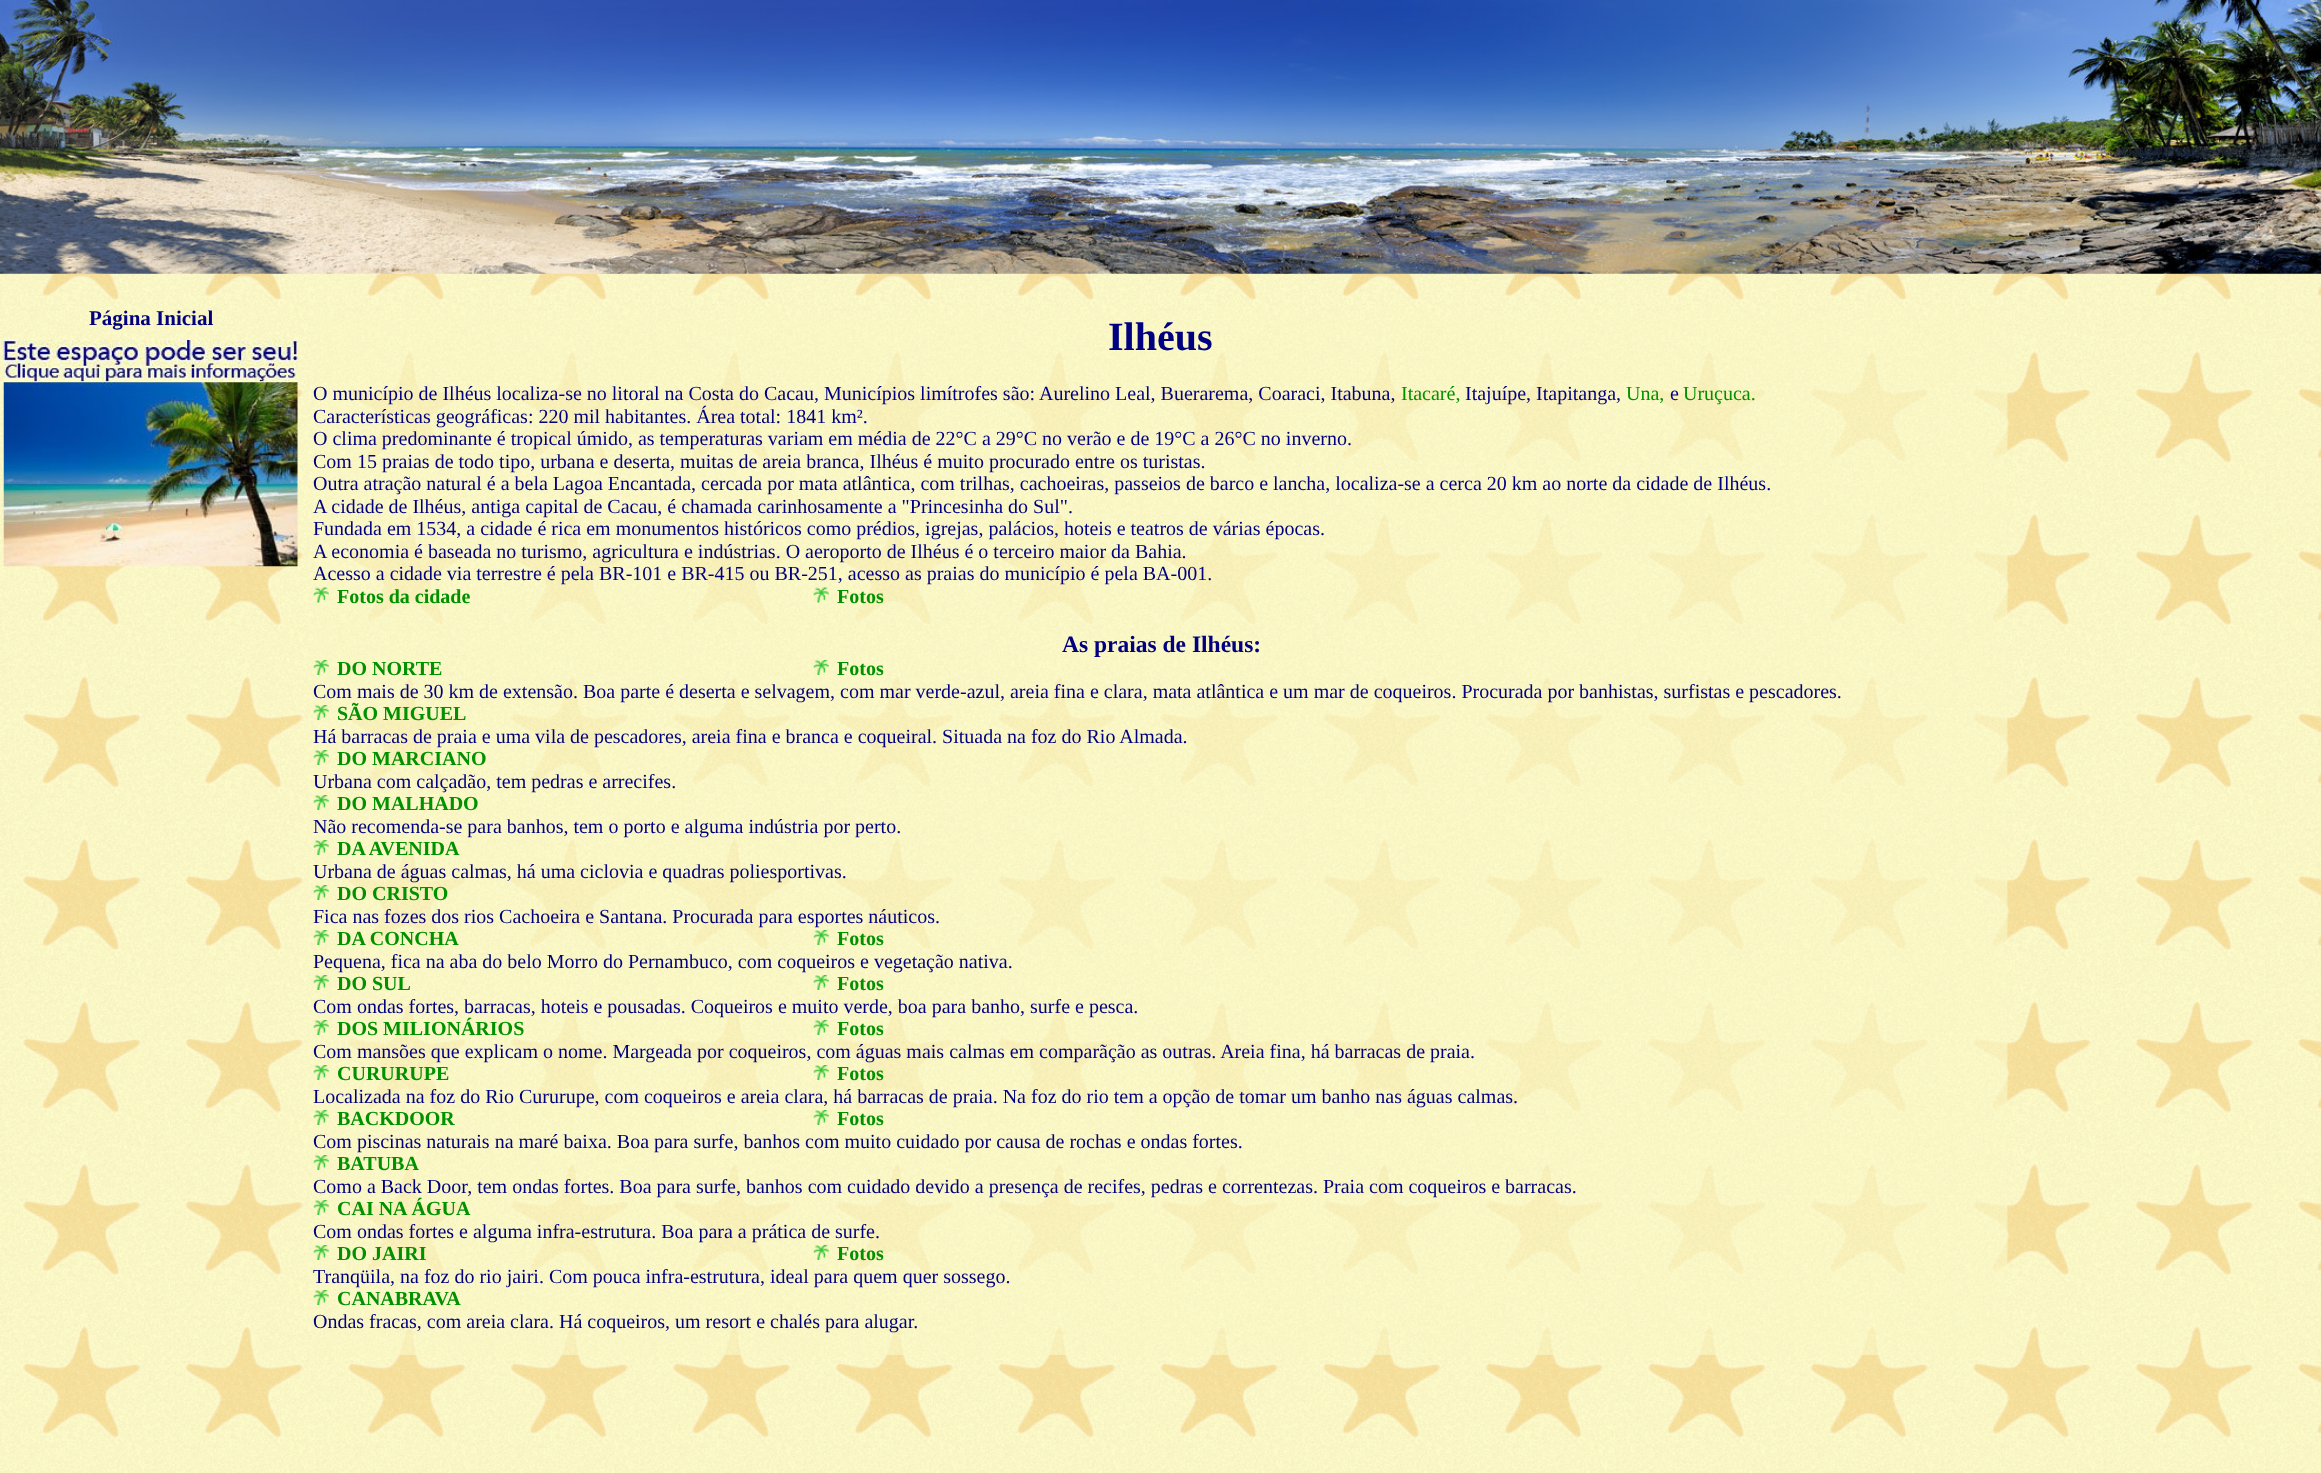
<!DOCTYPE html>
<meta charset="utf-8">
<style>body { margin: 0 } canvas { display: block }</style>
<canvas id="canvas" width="2321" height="1473"></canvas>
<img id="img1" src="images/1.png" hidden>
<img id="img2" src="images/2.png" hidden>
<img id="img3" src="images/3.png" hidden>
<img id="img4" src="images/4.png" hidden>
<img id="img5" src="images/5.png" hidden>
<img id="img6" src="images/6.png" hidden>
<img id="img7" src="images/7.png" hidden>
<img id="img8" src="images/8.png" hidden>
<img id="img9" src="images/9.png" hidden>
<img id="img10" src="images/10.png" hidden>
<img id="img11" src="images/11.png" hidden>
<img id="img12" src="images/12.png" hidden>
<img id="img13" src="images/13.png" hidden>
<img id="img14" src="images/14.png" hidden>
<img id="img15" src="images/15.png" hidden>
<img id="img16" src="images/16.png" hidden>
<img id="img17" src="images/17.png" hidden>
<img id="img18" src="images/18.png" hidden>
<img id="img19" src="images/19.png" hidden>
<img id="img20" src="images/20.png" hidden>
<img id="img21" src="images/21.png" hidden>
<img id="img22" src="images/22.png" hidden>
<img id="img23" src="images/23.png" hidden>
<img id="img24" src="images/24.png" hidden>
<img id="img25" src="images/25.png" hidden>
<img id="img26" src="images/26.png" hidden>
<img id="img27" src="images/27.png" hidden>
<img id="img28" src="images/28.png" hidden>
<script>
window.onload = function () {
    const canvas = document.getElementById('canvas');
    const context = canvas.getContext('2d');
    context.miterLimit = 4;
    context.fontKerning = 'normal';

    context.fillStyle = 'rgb(255, 255, 255)';
    context.fillRect(0, 0, 2321, 1473);
    context.drawImage(document.getElementById('img1'), 0, 273, 2321, 1200);
    context.drawImage(document.getElementById('img2'), 0, 0, 2321, 274);
    context.drawImage(document.getElementById('img3'), 3, 340, 295, 227);
    context.drawImage(document.getElementById('img4'), 314, 314, 1694, 1041);
    context.drawImage(document.getElementById('img5'), 313, 587, 16, 16);
    context.drawImage(document.getElementById('img6'), 813, 587, 16, 16);
    context.drawImage(document.getElementById('img7'), 313, 660, 16, 15);
    context.drawImage(document.getElementById('img8'), 813, 660, 16, 15);
    context.drawImage(document.getElementById('img9'), 313, 705, 16, 15);
    context.drawImage(document.getElementById('img10'), 313, 750, 16, 15);
    context.drawImage(document.getElementById('img11'), 313, 795, 16, 15);
    context.drawImage(document.getElementById('img12'), 313, 840, 16, 15);
    context.drawImage(document.getElementById('img13'), 313, 885, 16, 15);
    context.drawImage(document.getElementById('img14'), 313, 930, 16, 15);
    context.drawImage(document.getElementById('img15'), 813, 930, 16, 15);
    context.drawImage(document.getElementById('img16'), 313, 975, 16, 15);
    context.drawImage(document.getElementById('img17'), 813, 975, 16, 15);
    context.drawImage(document.getElementById('img18'), 313, 1020, 16, 15);
    context.drawImage(document.getElementById('img19'), 813, 1020, 16, 15);
    context.drawImage(document.getElementById('img20'), 313, 1065, 16, 15);
    context.drawImage(document.getElementById('img21'), 813, 1065, 16, 15);
    context.drawImage(document.getElementById('img22'), 313, 1110, 16, 15);
    context.drawImage(document.getElementById('img23'), 813, 1110, 16, 15);
    context.drawImage(document.getElementById('img24'), 313, 1155, 16, 15);
    context.drawImage(document.getElementById('img25'), 313, 1200, 16, 15);
    context.drawImage(document.getElementById('img26'), 313, 1245, 16, 15);
    context.drawImage(document.getElementById('img27'), 813, 1245, 16, 15);
    context.drawImage(document.getElementById('img28'), 313, 1290, 16, 15);
    context.font = 'bold 21px Liberation Serif';
    context.fillStyle = 'rgb(0, 0, 128)';
    context.fillText('Página Inicial', 89, 325);
    context.font = 'bold 40px Liberation Serif';
    context.fillText('Ilhéus', 1108, 350);
    context.font = '20px Liberation Serif';
    context.fillText('O município de Ilhéus localiza-se no litoral na Costa do Cacau, Municípios limítrofes são: Aurelino Leal, Buerarema, Coaraci, Itabuna,', 313, 400);
    context.fillStyle = 'rgb(0, 145, 0)';
    context.fillText('Itacaré,', 1401, 400);
    context.fillStyle = 'rgb(0, 0, 128)';
    context.fillText('Itajuípe, Itapitanga,', 1465, 400);
    context.fillStyle = 'rgb(0, 145, 0)';
    context.fillText('Una,', 1626, 400);
    context.fillStyle = 'rgb(0, 0, 128)';
    context.fillText('e', 1670, 400);
    context.fillStyle = 'rgb(0, 145, 0)';
    context.fillText('Uruçuca.', 1683, 400);
    context.fillStyle = 'rgb(0, 0, 128)';
    context.fillText('Características geográficas: 220 mil habitantes. Área total: 1841 km².', 313, 423);
    context.fillText('O clima predominante é tropical úmido, as temperaturas variam em média de 22°C a 29°C no verão e de 19°C a 26°C no inverno.', 313, 445);
    context.fillText('Com 15 praias de todo tipo, urbana e deserta, muitas de areia branca, Ilhéus é muito procurado entre os turistas.', 313, 468);
    context.fillText('Outra atração natural é a bela Lagoa Encantada, cercada por mata atlântica, com trilhas, cachoeiras, passeios de barco e lancha, localiza-se a cerca 20 km ao norte da cidade de Ilhéus.', 313, 490);
    context.fillText('A cidade de Ilhéus, antiga capital de Cacau, é chamada carinhosamente a "Princesinha do Sul".', 313, 513);
    context.fillText('Fundada em 1534, a cidade é rica em monumentos históricos como prédios, igrejas, palácios, hoteis e teatros de várias épocas.', 313, 535);
    context.fillText('A economia é baseada no turismo, agricultura e indústrias. O aeroporto de Ilhéus é o terceiro maior da Bahia.', 313, 558);
    context.fillText('Acesso a cidade via terrestre é pela BR-101 e BR-415 ou BR-251, acesso as praias do município é pela BA-001.', 313, 580);
    context.font = 'bold 20px Liberation Serif';
    context.fillStyle = 'rgb(0, 145, 0)';
    context.fillText('Fotos da cidade', 337, 603);
    context.fillText('Fotos', 837, 603);
    context.font = 'bold 23.5px Liberation Serif';
    context.fillStyle = 'rgb(0, 0, 128)';
    context.fillText('As praias de Ilhéus:', 1062, 652);
    context.font = 'bold 20px Liberation Serif';
    context.fillStyle = 'rgb(0, 145, 0)';
    context.fillText('DO NORTE', 337, 675);
    context.fillText('Fotos', 837, 675);
    context.font = '20px Liberation Serif';
    context.fillStyle = 'rgb(0, 0, 128)';
    context.fillText('Com mais de 30 km de extensão. Boa parte é deserta e selvagem, com mar verde-azul, areia fina e clara, mata atlântica e um mar de coqueiros. Procurada por banhistas, surfistas e pescadores.', 313, 698);
    context.font = 'bold 20px Liberation Serif';
    context.fillStyle = 'rgb(0, 145, 0)';
    context.fillText('SÃO MIGUEL', 337, 720);
    context.font = '20px Liberation Serif';
    context.fillStyle = 'rgb(0, 0, 128)';
    context.fillText('Há barracas de praia e uma vila de pescadores, areia fina e branca e coqueiral. Situada na foz do Rio Almada.', 313, 743);
    context.font = 'bold 20px Liberation Serif';
    context.fillStyle = 'rgb(0, 145, 0)';
    context.fillText('DO MARCIANO', 337, 765);
    context.font = '20px Liberation Serif';
    context.fillStyle = 'rgb(0, 0, 128)';
    context.fillText('Urbana com calçadão, tem pedras e arrecifes.', 313, 788);
    context.font = 'bold 20px Liberation Serif';
    context.fillStyle = 'rgb(0, 145, 0)';
    context.fillText('DO MALHADO', 337, 810);
    context.font = '20px Liberation Serif';
    context.fillStyle = 'rgb(0, 0, 128)';
    context.fillText('Não recomenda-se para banhos, tem o porto e alguma indústria por perto.', 313, 833);
    context.font = 'bold 20px Liberation Serif';
    context.fillStyle = 'rgb(0, 145, 0)';
    context.fillText('DA AVENIDA', 337, 855);
    context.font = '20px Liberation Serif';
    context.fillStyle = 'rgb(0, 0, 128)';
    context.fillText('Urbana de águas calmas, há uma ciclovia e quadras poliesportivas.', 313, 878);
    context.font = 'bold 20px Liberation Serif';
    context.fillStyle = 'rgb(0, 145, 0)';
    context.fillText('DO CRISTO', 337, 900);
    context.font = '20px Liberation Serif';
    context.fillStyle = 'rgb(0, 0, 128)';
    context.fillText('Fica nas fozes dos rios Cachoeira e Santana. Procurada para esportes náuticos.', 313, 923);
    context.font = 'bold 20px Liberation Serif';
    context.fillStyle = 'rgb(0, 145, 0)';
    context.fillText('DA CONCHA', 337, 945);
    context.fillText('Fotos', 837, 945);
    context.font = '20px Liberation Serif';
    context.fillStyle = 'rgb(0, 0, 128)';
    context.fillText('Pequena, fica na aba do belo Morro do Pernambuco, com coqueiros e vegetação nativa.', 313, 968);
    context.font = 'bold 20px Liberation Serif';
    context.fillStyle = 'rgb(0, 145, 0)';
    context.fillText('DO SUL', 337, 990);
    context.fillText('Fotos', 837, 990);
    context.font = '20px Liberation Serif';
    context.fillStyle = 'rgb(0, 0, 128)';
    context.fillText('Com ondas fortes, barracas, hoteis e pousadas. Coqueiros e muito verde, boa para banho, surfe e pesca.', 313, 1013);
    context.font = 'bold 20px Liberation Serif';
    context.fillStyle = 'rgb(0, 145, 0)';
    context.fillText('DOS MILIONÁRIOS', 337, 1035);
    context.fillText('Fotos', 837, 1035);
    context.font = '20px Liberation Serif';
    context.fillStyle = 'rgb(0, 0, 128)';
    context.fillText('Com mansões que explicam o nome. Margeada por coqueiros, com águas mais calmas em comparãção as outras. Areia fina, há barracas de praia.', 313, 1058);
    context.font = 'bold 20px Liberation Serif';
    context.fillStyle = 'rgb(0, 145, 0)';
    context.fillText('CURURUPE', 337, 1080);
    context.fillText('Fotos', 837, 1080);
    context.font = '20px Liberation Serif';
    context.fillStyle = 'rgb(0, 0, 128)';
    context.fillText('Localizada na foz do Rio Cururupe, com coqueiros e areia clara, há barracas de praia. Na foz do rio tem a opção de tomar um banho nas águas calmas.', 313, 1103);
    context.font = 'bold 20px Liberation Serif';
    context.fillStyle = 'rgb(0, 145, 0)';
    context.fillText('BACKDOOR', 337, 1125);
    context.fillText('Fotos', 837, 1125);
    context.font = '20px Liberation Serif';
    context.fillStyle = 'rgb(0, 0, 128)';
    context.fillText('Com piscinas naturais na maré baixa. Boa para surfe, banhos com muito cuidado por causa de rochas e ondas fortes.', 313, 1148);
    context.font = 'bold 20px Liberation Serif';
    context.fillStyle = 'rgb(0, 145, 0)';
    context.fillText('BATUBA', 337, 1170);
    context.font = '20px Liberation Serif';
    context.fillStyle = 'rgb(0, 0, 128)';
    context.fillText('Como a Back Door, tem ondas fortes. Boa para surfe, banhos com cuidado devido a presença de recifes, pedras e correntezas. Praia com coqueiros e barracas.', 313, 1193);
    context.font = 'bold 20px Liberation Serif';
    context.fillStyle = 'rgb(0, 145, 0)';
    context.fillText('CAI NA ÁGUA', 337, 1215);
    context.font = '20px Liberation Serif';
    context.fillStyle = 'rgb(0, 0, 128)';
    context.fillText('Com ondas fortes e alguma infra-estrutura. Boa para a prática de surfe.', 313, 1238);
    context.font = 'bold 20px Liberation Serif';
    context.fillStyle = 'rgb(0, 145, 0)';
    context.fillText('DO JAIRI', 337, 1260);
    context.fillText('Fotos', 837, 1260);
    context.font = '20px Liberation Serif';
    context.fillStyle = 'rgb(0, 0, 128)';
    context.fillText('Tranqüila, na foz do rio jairi. Com pouca infra-estrutura, ideal para quem quer sossego.', 313, 1283);
    context.font = 'bold 20px Liberation Serif';
    context.fillStyle = 'rgb(0, 145, 0)';
    context.fillText('CANABRAVA', 337, 1305);
    context.font = '20px Liberation Serif';
    context.fillStyle = 'rgb(0, 0, 128)';
    context.fillText('Ondas fracas, com areia clara. Há coqueiros, um resort e chalés para alugar.', 313, 1328);
};
</script>
